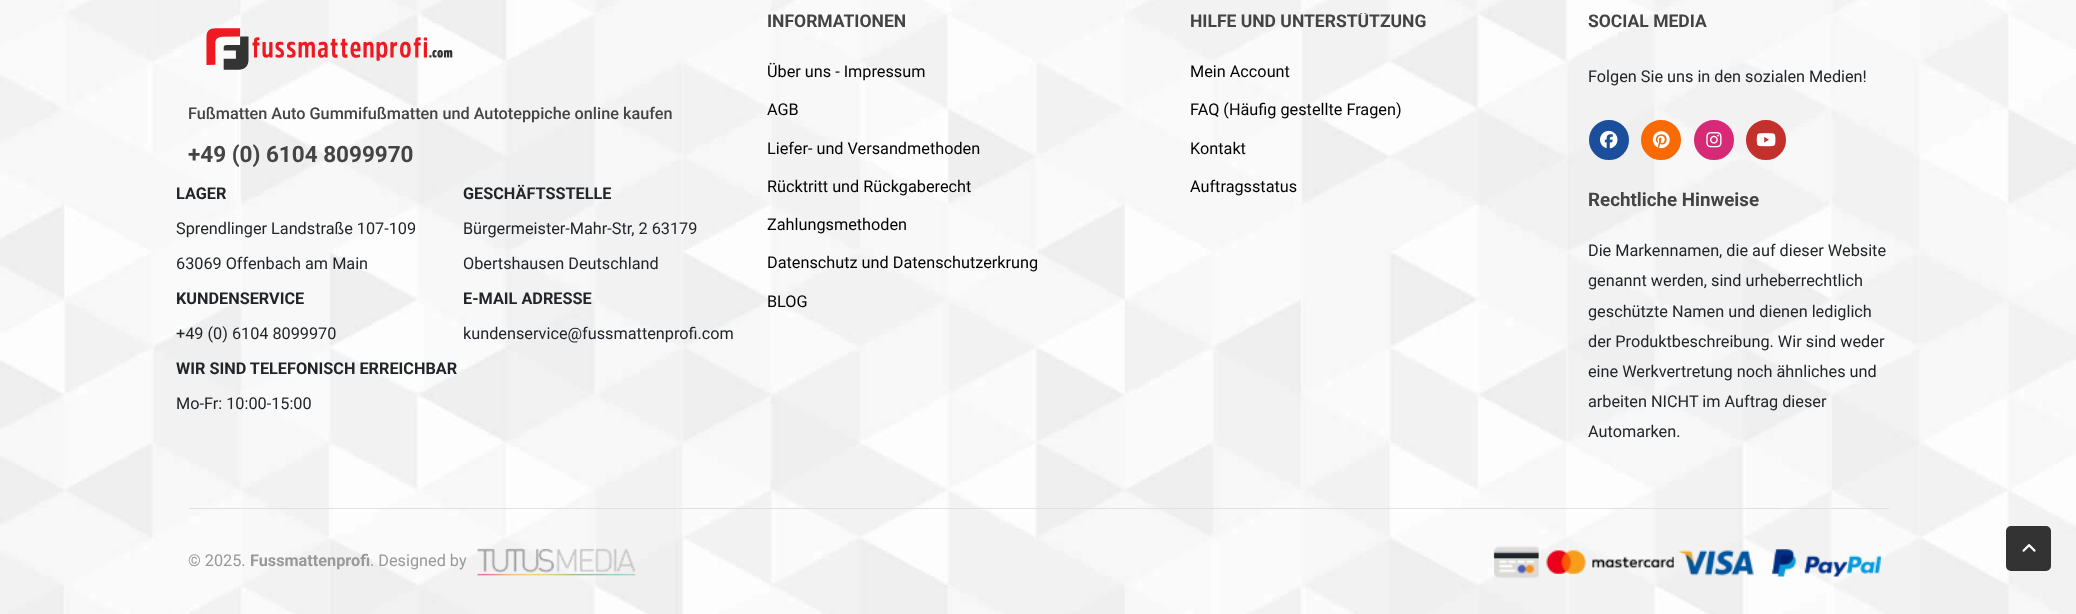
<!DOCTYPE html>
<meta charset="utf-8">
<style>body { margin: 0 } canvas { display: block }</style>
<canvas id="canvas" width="2076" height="614"></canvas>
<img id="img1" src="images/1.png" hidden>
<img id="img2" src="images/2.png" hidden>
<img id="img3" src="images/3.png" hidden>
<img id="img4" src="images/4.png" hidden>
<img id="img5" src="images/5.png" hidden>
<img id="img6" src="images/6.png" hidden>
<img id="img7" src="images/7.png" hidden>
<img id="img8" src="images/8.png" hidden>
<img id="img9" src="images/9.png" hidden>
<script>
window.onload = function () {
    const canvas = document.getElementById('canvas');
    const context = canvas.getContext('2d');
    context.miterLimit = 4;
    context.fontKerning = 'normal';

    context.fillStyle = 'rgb(255, 255, 255)';
    context.fillRect(0, 0, 2076, 614);
    context.drawImage(document.getElementById('img1'), 0, 0, 2076, 614);
    context.fillStyle = 'rgb(222, 226, 230)';
    context.fillRect(189, 508, 1700, 1);
    context.drawImage(document.getElementById('img2'), 206, 28, 247, 42);
    context.fillStyle = 'rgb(27, 79, 155)';
    context.beginPath();
    context.arc(1609, 140, 18.5, 0, 2 * Math.PI);
    context.fill();
    context.strokeStyle = 'rgb(27, 79, 155)';
    context.lineWidth = 3;
    context.stroke();
    context.drawImage(document.getElementById('img3'), 1600, 130, 18, 19);
    context.fillStyle = 'rgb(249, 106, 2)';
    context.beginPath();
    context.arc(1661, 140, 18.5, 0, 2 * Math.PI);
    context.fill();
    context.strokeStyle = 'rgb(249, 106, 2)';
    context.stroke();
    context.drawImage(document.getElementById('img4'), 1652, 131, 18, 18);
    context.fillStyle = 'rgb(214, 41, 118)';
    context.beginPath();
    context.arc(1714, 140, 18.5, 0, 2 * Math.PI);
    context.fill();
    context.strokeStyle = 'rgb(214, 41, 118)';
    context.stroke();
    context.drawImage(document.getElementById('img5'), 1706, 132, 16, 16);
    context.fillStyle = 'rgb(196, 48, 43)';
    context.beginPath();
    context.arc(1766, 140, 18.5, 0, 2 * Math.PI);
    context.fill();
    context.strokeStyle = 'rgb(196, 48, 43)';
    context.stroke();
    context.drawImage(document.getElementById('img6'), 1756, 133, 20, 14);
    context.drawImage(document.getElementById('img7'), 477, 548, 159, 28);
    context.drawImage(document.getElementById('img8'), 1493, 546, 389, 32);
    context.fillStyle = 'rgb(51, 51, 51)';
    context.beginPath();
    context.roundRect(2007.5, 527.5, 42, 42, 3.5);
    context.fill();
    context.strokeStyle = 'rgb(51, 51, 51)';
    context.stroke();
    context.drawImage(document.getElementById('img9'), 2022, 544, 14, 8);
    context.font = '500 16.25px Roboto';
    context.fillStyle = 'rgb(68, 68, 68)';
    context.fillText('Fußmatten Auto Gummifußmatten und Autoteppiche online kaufen', 188, 119);
    context.font = 'bold 22.5px Roboto';
    context.fillText('+49 (0) 6104 8099970', 188, 162);
    context.font = 'bold 16.25px Roboto';
    context.fillStyle = 'rgb(33, 37, 41)';
    context.fillText('LAGER', 176, 199);
    context.font = '16.25px Roboto';
    context.fillText('Sprendlinger Landstraße 107-109', 176, 234);
    context.fillText('63069 Offenbach am Main', 176, 269);
    context.font = 'bold 16.25px Roboto';
    context.fillText('KUNDENSERVICE', 176, 304);
    context.font = '16.25px Roboto';
    context.fillText('+49 (0) 6104 8099970', 176, 339);
    context.font = 'bold 16.25px Roboto';
    context.fillText('WIR SIND TELEFONISCH ERREICHBAR', 176, 374);
    context.font = '16.25px Roboto';
    context.fillText('Mo-Fr: 10:00-15:00', 176, 409);
    context.font = 'bold 16.25px Roboto';
    context.fillText('GESCHÄFTSSTELLE', 463, 199);
    context.font = '16.25px Roboto';
    context.fillText('Bürgermeister-Mahr-Str, 2 63179', 463, 234);
    context.fillText('Obertshausen Deutschland', 463, 269);
    context.font = 'bold 16.25px Roboto';
    context.fillText('E-MAIL ADRESSE', 463, 304);
    context.font = '16.25px Roboto';
    context.fillText('kundenservice@fussmattenprofi.com', 463, 339);
    context.font = 'bold 17.5px Roboto';
    context.fillStyle = 'rgb(68, 68, 68)';
    context.fillText('INFORMATIONEN', 767, 27);
    context.font = '16.25px Roboto';
    context.fillStyle = 'rgb(0, 0, 0)';
    context.fillText('Über uns - Impressum', 767, 77);
    context.fillText('AGB', 767, 115);
    context.fillText('Liefer- und Versandmethoden', 767, 154);
    context.fillText('Rücktritt und Rückgaberecht', 767, 192);
    context.fillText('Zahlungsmethoden', 767, 230);
    context.fillText('Datenschutz und Datenschutzerkrung', 767, 268);
    context.fillText('BLOG', 767, 307);
    context.save();
    context.beginPath();
    context.rect(1190, 13, 315, 25);
    context.clip();
    context.font = 'bold 17.5px Roboto';
    context.fillStyle = 'rgb(68, 68, 68)';
    context.fillText('HILFE UND UNTERSTÜTZUNG', 1190, 27);
    context.restore();
    context.fillText('Mein Account', 1190, 77);
    context.fillText('FAQ (Häufig gestellte Fragen)', 1190, 115);
    context.fillText('Kontakt', 1190, 154);
    context.fillText('Auftragsstatus', 1190, 192);
    context.font = 'bold 17.5px Roboto';
    context.fillStyle = 'rgb(68, 68, 68)';
    context.fillText('SOCIAL MEDIA', 1588, 27);
    context.font = '16.25px Roboto';
    context.fillStyle = 'rgb(33, 37, 41)';
    context.fillText('Folgen Sie uns in den sozialen Medien!', 1588, 82);
    context.font = 'bold 18.75px Roboto';
    context.fillStyle = 'rgb(68, 68, 68)';
    context.fillText('Rechtliche Hinweise', 1588, 206);
    context.font = '16.25px Roboto';
    context.fillStyle = 'rgb(33, 37, 41)';
    context.fillText('Die Markennamen, die auf dieser Website', 1588, 256);
    context.fillText('genannt werden, sind urheberrechtlich', 1588, 286);
    context.fillText('geschützte Namen und dienen lediglich', 1588, 317);
    context.fillText('der Produktbeschreibung. Wir sind weder', 1588, 347);
    context.fillText('eine Werkvertretung noch ähnliches und', 1588, 377);
    context.fillText('arbeiten NICHT im Auftrag dieser', 1588, 407);
    context.fillText('Automarken.', 1588, 437);
    context.fillStyle = 'rgb(153, 153, 153)';
    context.fillText('© 2025.', 188, 566);
    context.font = 'bold 16.25px Roboto';
    context.fillText('Fussmattenprofi', 250, 566);
    context.font = '16.25px Roboto';
    context.fillText('. Designed by', 370, 566);
};
</script>
